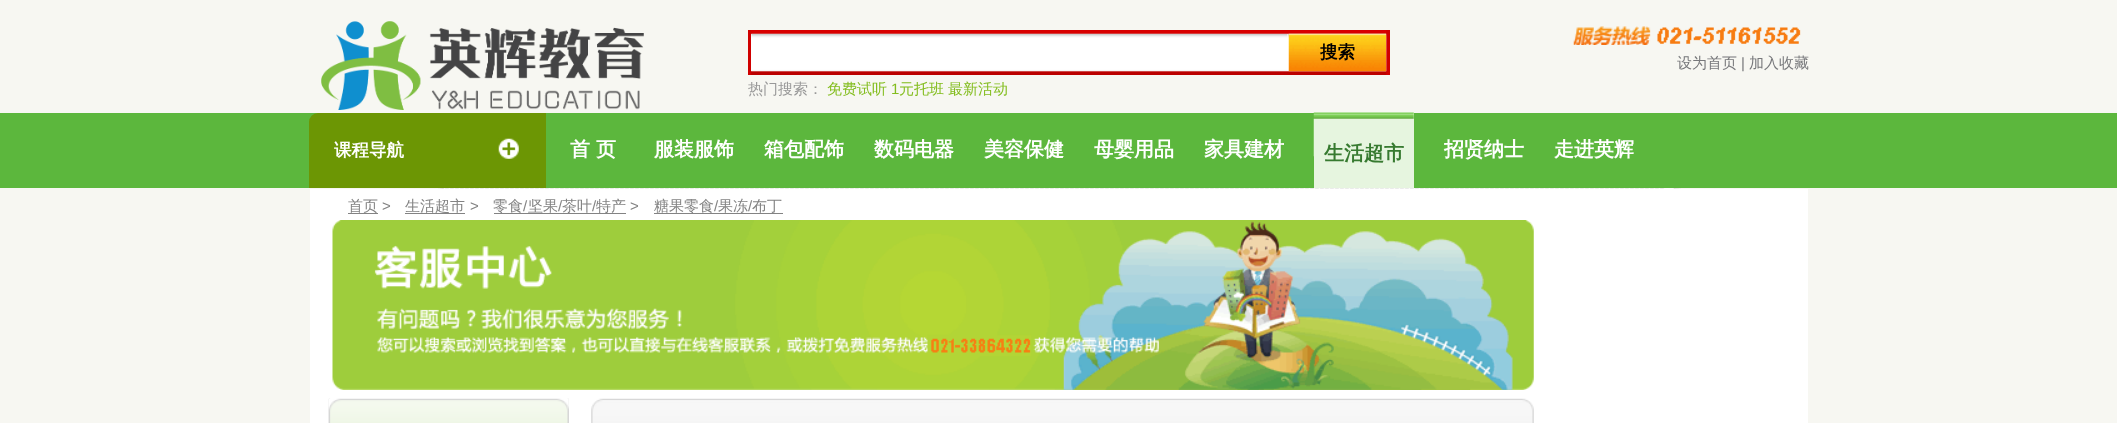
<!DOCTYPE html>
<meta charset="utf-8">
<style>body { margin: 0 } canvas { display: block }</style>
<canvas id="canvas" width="2117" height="423"></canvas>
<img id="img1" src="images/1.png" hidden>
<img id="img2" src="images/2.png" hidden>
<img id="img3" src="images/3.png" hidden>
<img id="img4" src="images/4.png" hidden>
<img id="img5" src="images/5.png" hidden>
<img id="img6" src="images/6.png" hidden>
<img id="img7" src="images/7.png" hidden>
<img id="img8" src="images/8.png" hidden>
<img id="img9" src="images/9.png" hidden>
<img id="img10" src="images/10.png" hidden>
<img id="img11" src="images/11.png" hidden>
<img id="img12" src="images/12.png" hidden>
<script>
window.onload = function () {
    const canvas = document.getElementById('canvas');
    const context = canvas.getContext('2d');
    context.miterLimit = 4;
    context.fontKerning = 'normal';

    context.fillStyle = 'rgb(247, 247, 242)';
    context.fillRect(0, 0, 2117, 423);
    context.drawImage(document.getElementById('img1'), 321, 21, 323, 89);
    context.fillStyle = 'rgb(208, 0, 0)';
    context.fillRect(1386, 30, 4, 45);
    context.fillRect(748, 30, 638, 45);
    context.drawImage(document.getElementById('img2'), 751, 30, 636, 45);
    context.fillStyle = 'rgb(255, 255, 255)';
    context.fillRect(751, 34, 537, 37);
    context.drawImage(document.getElementById('img3'), 751, 34, 537, 37);
    context.drawImage(document.getElementById('img4'), 1288, 33, 99, 39);
    context.drawImage(document.getElementById('img5'), 1573, 26, 228, 19);
    context.fillStyle = 'rgb(92, 183, 61)';
    context.fillRect(0, 113, 2117, 75);
    context.fillStyle = 'rgb(108, 150, 4)';
    context.beginPath();
    context.roundRect(309, 113, 237, 75, [9, 0, 0, 0]);
    context.fill();
    context.drawImage(document.getElementById('img6'), 498, 138, 21, 21);
    context.fillStyle = 'rgb(230, 245, 223)';
    context.fillRect(1314, 113, 100, 75);
    context.drawImage(document.getElementById('img7'), 1313, 112, 101, 45);
    context.drawImage(document.getElementById('img8'), 438, 188, 1243, 1);
    context.fillStyle = 'rgb(255, 255, 255)';
    context.fillRect(310, 189, 1498, 234);
    context.fillStyle = 'rgb(131, 131, 131)';
    context.fillRect(348, 213, 30, 1);
    context.fillRect(405, 213, 60, 1);
    context.fillRect(494, 213, 132, 1);
    context.fillRect(654, 213, 129, 1);
    context.drawImage(document.getElementById('img9'), 332, 220, 1202, 170);
    context.drawImage(document.getElementById('img10'), 328, 398, 241, 25);
    context.drawImage(document.getElementById('img11'), 328, 398, 241, 25);
    context.drawImage(document.getElementById('img12'), 591, 398, 943, 25);
    context.font = 'bold 17.5px WenQuanYi Zen Hei';
    context.fillStyle = 'rgb(0, 0, 0)';
    context.fillText('搜索', 1320, 58);
    context.font = '500 15px WenQuanYi Zen Hei';
    context.fillStyle = 'rgb(153, 153, 153)';
    context.fillText('热门搜索：', 748, 94);
    context.fillStyle = 'rgb(131, 189, 30)';
    context.fillText('免费试听', 827, 94);
    context.font = '15px Liberation Sans';
    context.fillText('1', 891, 94);
    context.font = '500 15px WenQuanYi Zen Hei';
    context.fillText('元托班', 899, 94);
    context.fillText('最新活动', 948, 94);
    context.fillStyle = 'rgb(119, 120, 123)';
    context.fillText('设为首页', 1677, 68);
    context.font = '15px Liberation Sans';
    context.fillText('|', 1741, 68);
    context.font = '500 15px WenQuanYi Zen Hei';
    context.fillText('加入收藏', 1749, 68);
    context.font = 'bold 17.5px WenQuanYi Zen Hei';
    context.fillStyle = 'rgb(255, 255, 255)';
    context.fillText('课程导航', 334, 156);
    context.font = 'bold 20px WenQuanYi Zen Hei';
    context.fillText('首 页', 570, 156);
    context.fillText('服装服饰', 654, 156);
    context.fillText('箱包配饰', 764, 156);
    context.fillText('数码电器', 874, 156);
    context.fillText('美容保健', 984, 156);
    context.fillText('母婴用品', 1094, 156);
    context.fillText('家具建材', 1204, 156);
    context.fillStyle = 'rgb(55, 122, 48)';
    context.fillText('生活超市', 1324, 160);
    context.fillStyle = 'rgb(255, 255, 255)';
    context.fillText('招贤纳士', 1444, 156);
    context.fillText('走进英辉', 1554, 156);
    context.font = '500 15px WenQuanYi Zen Hei';
    context.fillStyle = 'rgb(131, 131, 131)';
    context.fillText('首页', 348, 211);
    context.font = '15px Liberation Sans';
    context.fillText('>', 382, 211);
    context.font = '500 15px WenQuanYi Zen Hei';
    context.fillText('生活超市', 405, 211);
    context.font = '15px Liberation Sans';
    context.fillText('>', 470, 211);
    context.font = '500 15px WenQuanYi Zen Hei';
    context.fillText('零食', 493, 211);
    context.font = '15px Liberation Sans';
    context.fillText('/', 523, 211);
    context.font = '500 15px WenQuanYi Zen Hei';
    context.fillText('坚果', 528, 211);
    context.font = '15px Liberation Sans';
    context.fillText('/', 558, 211);
    context.font = '500 15px WenQuanYi Zen Hei';
    context.fillText('茶叶', 562, 211);
    context.font = '15px Liberation Sans';
    context.fillText('/', 592, 211);
    context.font = '500 15px WenQuanYi Zen Hei';
    context.fillText('特产', 596, 211);
    context.font = '15px Liberation Sans';
    context.fillText('>', 630, 211);
    context.font = '500 15px WenQuanYi Zen Hei';
    context.fillText('糖果零食', 654, 211);
    context.font = '15px Liberation Sans';
    context.fillText('/', 714, 211);
    context.font = '500 15px WenQuanYi Zen Hei';
    context.fillText('果冻', 718, 211);
    context.font = '15px Liberation Sans';
    context.fillText('/', 748, 211);
    context.font = '500 15px WenQuanYi Zen Hei';
    context.fillText('布丁', 752, 211);
};
</script>
